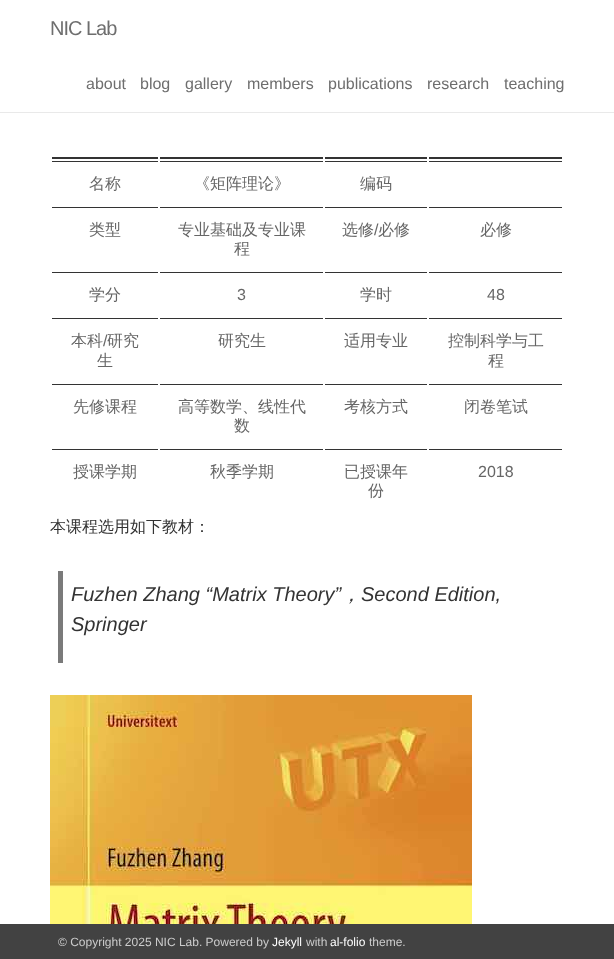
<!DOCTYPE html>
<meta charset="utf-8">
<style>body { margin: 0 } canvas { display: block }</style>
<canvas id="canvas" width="614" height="959"></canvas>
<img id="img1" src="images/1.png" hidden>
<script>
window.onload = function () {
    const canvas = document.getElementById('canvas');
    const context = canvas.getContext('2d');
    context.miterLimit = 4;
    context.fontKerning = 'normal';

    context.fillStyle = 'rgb(255, 255, 255)';
    context.fillRect(0, 0, 614, 959);
    context.fillStyle = 'rgb(233, 233, 233)';
    context.fillRect(0, 112, 614, 1);
    context.fillStyle = 'rgb(51, 51, 51)';
    context.fillRect(52, 157, 106, 2);
    context.fillRect(160, 157, 163, 2);
    context.fillRect(325, 157, 102, 2);
    context.fillRect(429, 157, 133, 2);
    context.fillRect(429, 161, 133, 1);
    context.fillRect(52, 161, 106, 1);
    context.fillRect(160, 161, 163, 1);
    context.fillRect(325, 161, 102, 1);
    context.fillRect(52, 207, 106, 1);
    context.fillRect(160, 207, 163, 1);
    context.fillRect(325, 207, 102, 1);
    context.fillRect(429, 207, 133, 1);
    context.fillRect(52, 272, 106, 1);
    context.fillRect(160, 272, 163, 1);
    context.fillRect(325, 272, 102, 1);
    context.fillRect(429, 272, 133, 1);
    context.fillRect(52, 318, 106, 1);
    context.fillRect(160, 318, 163, 1);
    context.fillRect(325, 318, 102, 1);
    context.fillRect(429, 318, 133, 1);
    context.fillRect(52, 384, 106, 1);
    context.fillRect(160, 384, 163, 1);
    context.fillRect(325, 384, 102, 1);
    context.fillRect(429, 384, 133, 1);
    context.fillRect(52, 449, 106, 1);
    context.fillRect(160, 449, 163, 1);
    context.fillRect(325, 449, 102, 1);
    context.fillRect(429, 449, 133, 1);
    context.fillStyle = 'rgb(122, 122, 122)';
    context.fillRect(58, 571, 5, 92);
    context.drawImage(document.getElementById('img1'), 50, 695, 422, 229);
    context.fillStyle = 'rgb(66, 66, 66)';
    context.fillRect(0, 924, 614, 35);
    context.letterSpacing = '-1px';
    context.font = '20px Liberation Sans';
    context.fillStyle = 'rgb(110, 110, 110)';
    context.fillText('NIC Lab', 50, 35);
    context.letterSpacing = '0px';
    context.font = '16px Liberation Sans';
    context.fillText('about', 86, 89);
    context.fillText('blog', 140, 89);
    context.fillText('gallery', 185, 89);
    context.fillText('members', 247, 89);
    context.fillText('publications', 328, 89);
    context.fillText('research', 427, 89);
    context.fillText('teaching', 504, 89);
    context.font = '500 16px WenQuanYi Zen Hei';
    context.fillStyle = 'rgb(102, 102, 102)';
    context.fillText('名称', 89, 189);
    context.fillText('《矩阵理论》', 194, 189);
    context.fillText('编码', 360, 189);
    context.fillText('类型', 89, 235);
    context.fillText('专业基础及专业课', 178, 235);
    context.fillText('程', 234, 254);
    context.fillText('选修', 342, 235);
    context.font = '16px Liberation Sans';
    context.fillText('/', 374, 235);
    context.font = '500 16px WenQuanYi Zen Hei';
    context.fillText('必修', 378, 235);
    context.fillText('必修', 480, 235);
    context.fillText('学分', 89, 300);
    context.font = '16px Liberation Sans';
    context.fillText('3', 237, 300);
    context.font = '500 16px WenQuanYi Zen Hei';
    context.fillText('学时', 360, 300);
    context.font = '16px Liberation Sans';
    context.fillText('48', 487, 300);
    context.font = '500 16px WenQuanYi Zen Hei';
    context.fillText('本科', 71, 346);
    context.font = '16px Liberation Sans';
    context.fillText('/', 103, 346);
    context.font = '500 16px WenQuanYi Zen Hei';
    context.fillText('研究', 107, 346);
    context.fillText('生', 97, 366);
    context.fillText('研究生', 218, 346);
    context.fillText('适用专业', 344, 346);
    context.fillText('控制科学与工', 448, 346);
    context.fillText('程', 488, 366);
    context.fillText('先修课程', 73, 412);
    context.fillText('高等数学、线性代', 178, 412);
    context.fillText('数', 234, 431);
    context.fillText('考核方式', 344, 412);
    context.fillText('闭卷笔试', 464, 412);
    context.fillText('授课学期', 73, 477);
    context.fillText('秋季学期', 210, 477);
    context.fillText('已授课年', 344, 477);
    context.fillText('份', 368, 496);
    context.font = '16px Liberation Sans';
    context.fillText('2018', 478, 477);
    context.font = '500 16px WenQuanYi Zen Hei';
    context.fillStyle = 'rgb(51, 51, 51)';
    context.fillText('本课程选用如下教材：', 50, 532);
    context.font = 'italic 20px Liberation Sans';
    context.fillText('Fuzhen Zhang “Matrix Theory”', 71, 601);
    context.font = 'italic 500 20px WenQuanYi Zen Hei';
    context.fillText('，', 341, 601);
    context.font = 'italic 20px Liberation Sans';
    context.fillText('Second Edition,', 361, 601);
    context.fillText('Springer', 71, 631);
    context.font = '12px Liberation Sans';
    context.fillStyle = 'rgb(204, 204, 204)';
    context.fillText('© Copyright 2025 NIC Lab. Powered by', 58, 946);
    context.fillStyle = 'rgb(255, 255, 255)';
    context.fillText('Jekyll', 272, 946);
    context.fillStyle = 'rgb(204, 204, 204)';
    context.fillText('with', 306, 946);
    context.fillStyle = 'rgb(255, 255, 255)';
    context.fillText('al-folio', 330, 946);
    context.fillStyle = 'rgb(204, 204, 204)';
    context.fillText('theme.', 369, 946);
};
</script>
